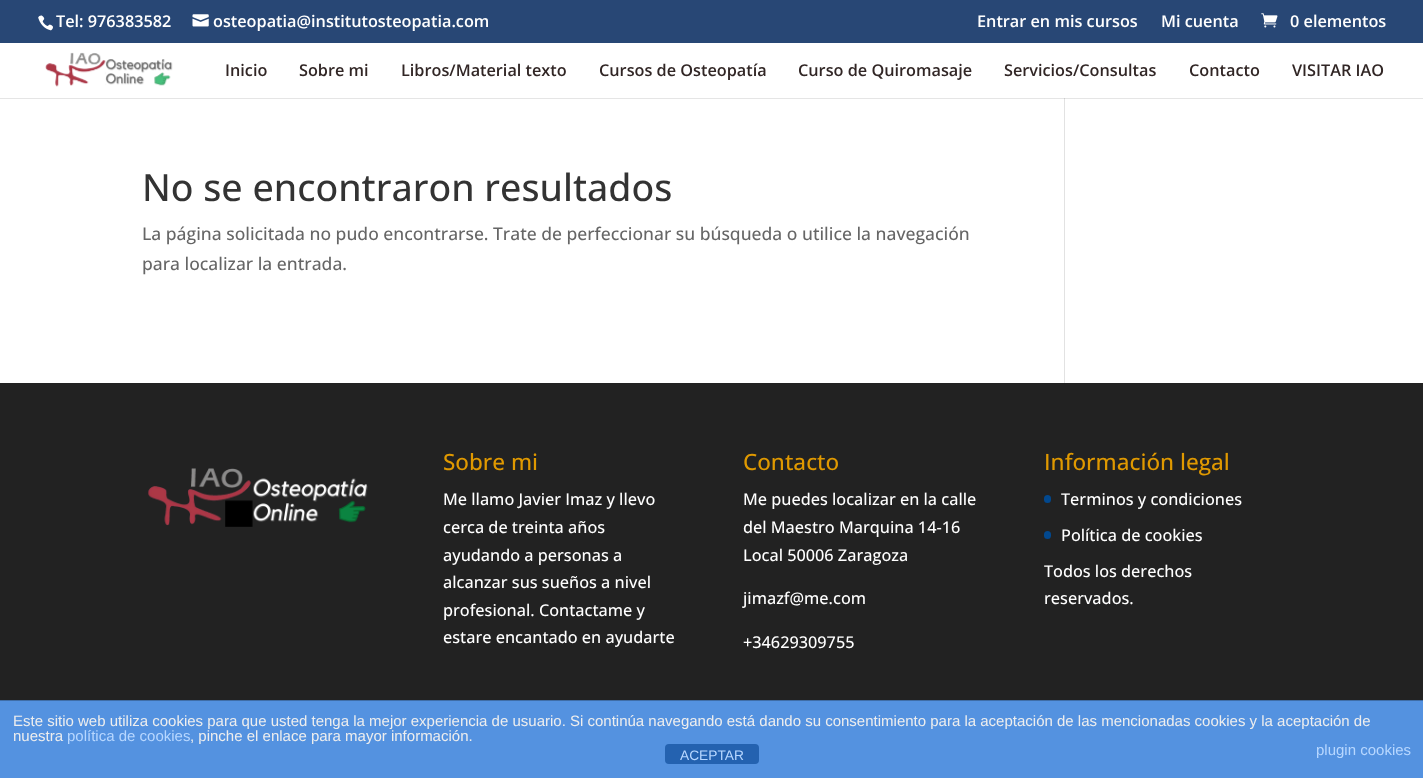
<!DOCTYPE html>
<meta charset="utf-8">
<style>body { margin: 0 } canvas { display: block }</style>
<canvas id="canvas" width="1423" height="778"></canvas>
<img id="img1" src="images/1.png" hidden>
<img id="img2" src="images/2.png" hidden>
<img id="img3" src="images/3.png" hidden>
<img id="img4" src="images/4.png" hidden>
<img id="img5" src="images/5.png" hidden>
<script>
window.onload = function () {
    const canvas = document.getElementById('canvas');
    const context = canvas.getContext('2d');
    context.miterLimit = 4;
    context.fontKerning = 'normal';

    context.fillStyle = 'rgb(255, 255, 255)';
    context.fillRect(0, 0, 1423, 778);
    context.fillStyle = 'rgb(40, 71, 117)';
    context.fillRect(0, 0, 1423, 43);
    context.drawImage(document.getElementById('img1'), 38, 15, 15, 16);
    context.drawImage(document.getElementById('img2'), 192, 14, 17, 13);
    context.drawImage(document.getElementById('img3'), 1261, 13, 17, 15);
    context.fillStyle = 'rgb(226, 226, 226)';
    context.fillRect(1064, 96, 1, 287);
    context.fillStyle = 'rgba(0, 0, 0, 0.1)';
    context.beginPath();
    context.moveTo(0, 98);
    context.lineTo(0, 99);
    context.lineTo(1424, 99);
    context.lineTo(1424, 44);
    context.lineTo(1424, 98);
    context.closePath();
    context.fill();
    context.fillStyle = 'rgb(255, 255, 255)';
    context.fillRect(1064, 96, 1, 2);
    context.drawImage(document.getElementById('img4'), 45, 52, 128, 35);
    context.fillStyle = 'rgb(34, 34, 34)';
    context.fillRect(0, 383, 1423, 317);
    context.drawImage(document.getElementById('img5'), 148, 468, 220, 59);
    context.fillStyle = 'rgb(2, 72, 142)';
    context.beginPath();
    context.roundRect(1044, 495, 7, 8, 3.5);
    context.fill();
    context.beginPath();
    context.roundRect(1044, 531, 7, 8, 3.5);
    context.fill();
    context.fillStyle = 'rgb(84, 146, 224)';
    context.fillRect(0, 701, 1423, 77);
    context.fillStyle = 'rgb(63, 109, 167)';
    context.fillRect(0, 700, 1423, 1);
    context.fillStyle = 'rgb(36, 98, 176)';
    context.beginPath();
    context.roundRect(665, 744, 94, 20, 4);
    context.fill();
    context.font = '600 16.25px Open Sans';
    context.fillStyle = 'rgb(255, 255, 255)';
    context.fillText('Tel: 976383582', 56, 27);
    context.fillText('osteopatia@institutosteopatia.com', 213, 27);
    context.fillText('Entrar en mis cursos', 977, 27);
    context.fillText('Mi cuenta', 1161, 27);
    context.fillText('0 elementos', 1290, 27);
    context.fillStyle = 'rgb(49, 38, 37)';
    context.fillText('Inicio', 225, 76);
    context.fillText('Sobre mi', 299, 76);
    context.fillText('Libros/Material texto', 401, 76);
    context.fillText('Cursos de Osteopatía', 599, 76);
    context.fillText('Curso de Quiromasaje', 798, 76);
    context.fillText('Servicios/Consultas', 1004, 76);
    context.fillText('Contacto', 1189, 76);
    context.fillText('VISITAR IAO', 1292, 76);
    context.font = '500 37.5px Open Sans';
    context.fillStyle = 'rgb(51, 51, 51)';
    context.fillText('No se encontraron resultados', 142, 201);
    context.font = '500 17.5px Open Sans';
    context.fillStyle = 'rgb(102, 102, 102)';
    context.fillText('La página solicitada no pudo encontrarse. Trate de perfeccionar su búsqueda o utilice la navegación', 142, 240);
    context.fillText('para localizar la entrada.', 142, 270);
    context.font = '500 22.5px Open Sans';
    context.fillStyle = 'rgb(224, 153, 0)';
    context.fillText('Sobre mi', 443, 470);
    context.font = '500 16.25px Open Sans';
    context.fillStyle = 'rgb(255, 255, 255)';
    context.fillText('Me llamo Javier Imaz y llevo', 443, 505);
    context.fillText('cerca de treinta años', 443, 533);
    context.fillText('ayudando a personas a', 443, 561);
    context.fillText('alcanzar sus sueños a nivel', 443, 588);
    context.fillText('profesional. Contactame y', 443, 616);
    context.fillText('estare encantado en ayudarte', 443, 643);
    context.font = '500 22.5px Open Sans';
    context.fillStyle = 'rgb(224, 153, 0)';
    context.fillText('Contacto', 743, 470);
    context.font = '500 16.25px Open Sans';
    context.fillStyle = 'rgb(255, 255, 255)';
    context.fillText('Me puedes localizar en la calle', 743, 505);
    context.fillText('del Maestro Marquina 14-16', 743, 533);
    context.fillText('Local 50006 Zaragoza', 743, 561);
    context.fillText('jimazf@me.com', 743, 604);
    context.fillText('+34629309755', 743, 648);
    context.font = '500 22.5px Open Sans';
    context.fillStyle = 'rgb(224, 153, 0)';
    context.fillText('Información legal', 1044, 470);
    context.font = '500 16.25px Open Sans';
    context.fillStyle = 'rgb(255, 255, 255)';
    context.fillText('Terminos y condiciones', 1061, 505);
    context.fillText('Política de cookies', 1061, 541);
    context.fillText('Todos los derechos', 1044, 577);
    context.fillText('reservados.', 1044, 604);
    context.font = '15px Liberation Sans';
    context.fillStyle = 'rgb(238, 238, 238)';
    context.fillText('Este sitio web utiliza cookies para que usted tenga la mejor experiencia de usuario. Si continúa navegando está dando su consentimiento para la aceptación de las mencionadas cookies y la aceptación de', 13, 726);
    context.fillText('nuestra', 13, 741);
    context.fillStyle = 'rgb(183, 215, 255)';
    context.fillText('política de cookies', 67, 741);
    context.fillStyle = 'rgb(238, 238, 238)';
    context.fillText(', pinche el enlace para mayor información.', 190, 741);
    context.fillStyle = 'rgb(183, 215, 255)';
    context.fillText('plugin cookies', 1316, 755);
    context.font = '13.75px Liberation Sans';
    context.fillText('ACEPTAR', 680, 760);
};
</script>
